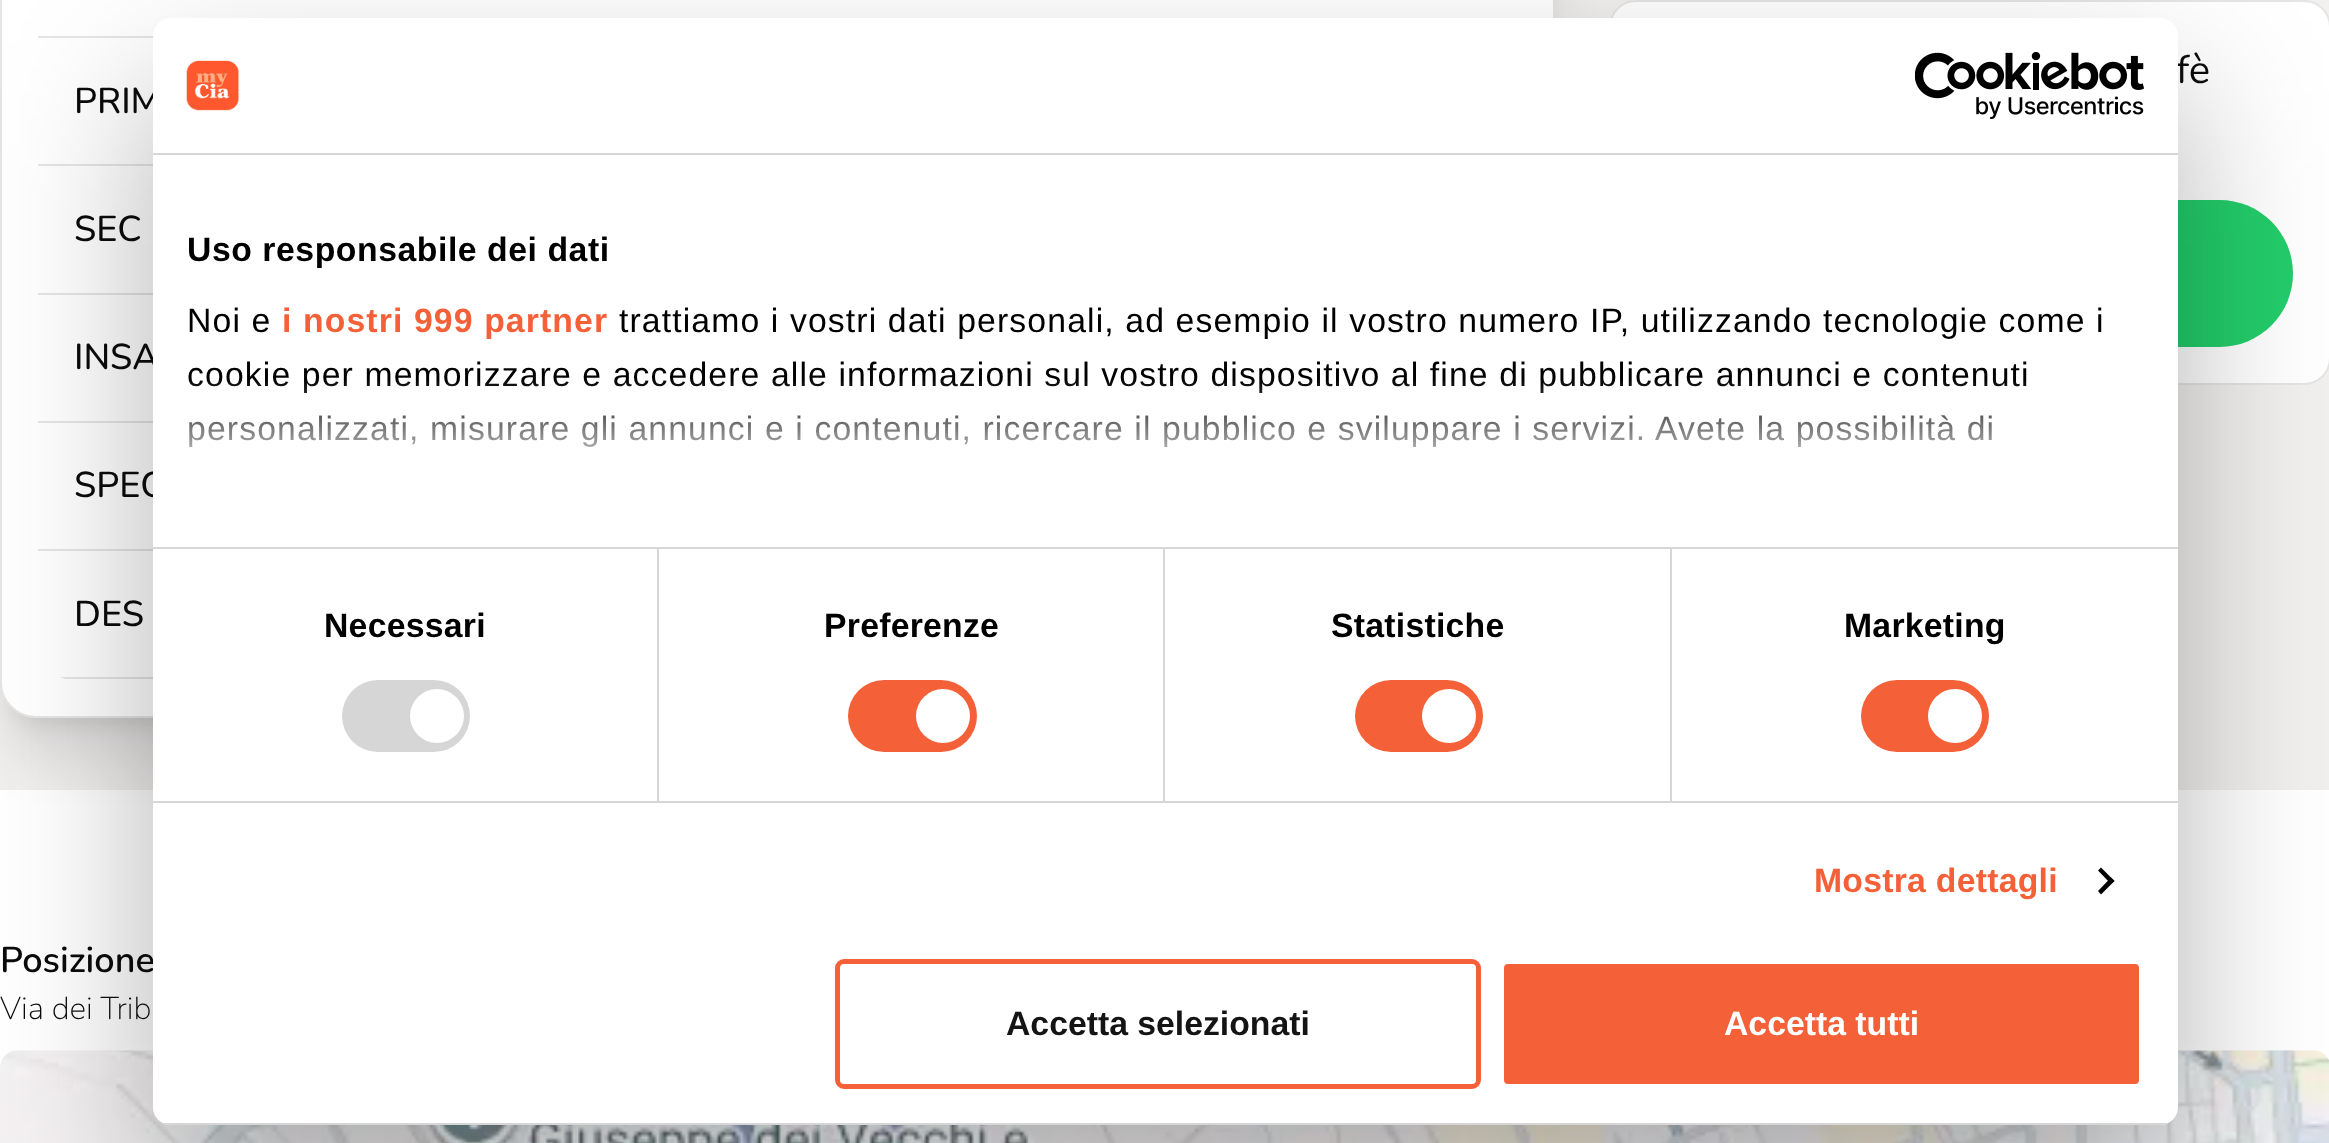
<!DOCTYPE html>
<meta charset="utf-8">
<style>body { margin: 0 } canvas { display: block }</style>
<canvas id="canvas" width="2329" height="1143"></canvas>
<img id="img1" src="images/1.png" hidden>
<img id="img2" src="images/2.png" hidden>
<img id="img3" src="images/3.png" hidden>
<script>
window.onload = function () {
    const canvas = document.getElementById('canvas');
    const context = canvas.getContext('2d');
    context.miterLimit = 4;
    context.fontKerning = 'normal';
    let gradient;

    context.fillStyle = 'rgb(255, 255, 255)';
    context.fillRect(0, 0, 2329, 1143);
    context.fillStyle = 'rgb(242, 239, 239)';
    context.fillRect(0, 0, 2329, 790);
    context.fillStyle = 'rgba(0, 0, 0, 0.1)';
    context.filter = 'blur(28px)';
    context.beginPath();
    context.roundRect(11, -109, 1533, 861, 25);
    context.fill();
    context.filter = 'none';
    context.fillStyle = 'rgb(255, 255, 255)';
    context.beginPath();
    context.roundRect(1610, 1, 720, 383, 26);
    context.fill();
    context.strokeStyle = 'rgb(229, 229, 229)';
    context.lineWidth = 2;
    context.stroke();
    context.fillStyle = 'rgb(35, 206, 107)';
    context.beginPath();
    context.roundRect(1647, 200, 646, 147, 73.5);
    context.fill();
    context.fillStyle = 'rgba(0, 0, 0, 0.1)';
    context.filter = 'blur(11px)';
    context.beginPath();
    context.roundRect(14, -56, 1527, 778, 23);
    context.fill();
    context.filter = 'none';
    context.fillStyle = 'rgb(255, 255, 255)';
    context.beginPath();
    context.roundRect(1, -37, 1553, 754, 35);
    context.fill();
    context.stroke();
    context.fillStyle = 'rgb(229, 229, 229)';
    context.fillRect(38, 36, 115, 2);
    context.fillRect(38, 164, 115, 2);
    context.fillRect(38, 293, 115, 2);
    context.fillRect(38, 421, 115, 2);
    context.fillRect(38, 549, 115, 2);
    context.save();
    context.beginPath();
    context.roundRect(38, -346, 1479, 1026, 36);
    context.clip();
    context.fillRect(59, 677, 94, 2);
    context.restore();
    context.drawImage(document.getElementById('img1'), 0, 1050, 2329, 93);
    context.fillStyle = 'rgba(0, 0, 0, 0.3)';
    context.filter = 'blur(76.5px)';
    context.beginPath();
    context.roundRect(153, 90, 2025, 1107, 18);
    context.fill();
    context.filter = 'none';
    context.font = '40px Nunito';
    context.fillStyle = 'rgb(10, 10, 10)';
    context.fillText('fè', 2176, 83);
    context.font = '500 36px Nunito';
    context.fillText('PRIM', 74, 113);
    context.fillText('SEC', 74, 241);
    context.fillText('INSA', 74, 369);
    context.fillText('SPEC', 74, 497);
    context.fillText('DES', 74, 626);
    context.font = '600 36px Nunito';
    context.fillText('Posizione', 0, 972);
    context.font = '200 31.5px Nunito';
    context.fillText('Via dei Trib', 0, 1019);
    context.fillStyle = 'rgb(255, 255, 255)';
    context.beginPath();
    context.roundRect(153, 18, 2025, 1107, 18);
    context.fill();
    context.fillStyle = 'rgb(214, 214, 214)';
    context.fillRect(153, 153, 2025, 2);
    context.drawImage(document.getElementById('img2'), 186, 60, 53, 51);
    context.drawImage(document.getElementById('img3'), 1915, 52, 229, 67);
    context.fillRect(153, 547, 2025, 2);
    context.letterSpacing = '0.55px';
    context.font = 'bold 33.75px Liberation Sans';
    context.fillStyle = 'rgb(0, 0, 0)';
    context.fillText('Uso responsabile dei dati', 187, 261);
    context.letterSpacing = '1.12px';
    context.font = '33.75px Liberation Sans';
    context.fillText('Noi e', 187, 332);
    context.font = 'bold 33.75px Liberation Sans';
    context.fillStyle = 'rgb(244, 97, 57)';
    context.fillText('i nostri 999 partner', 282, 332);
    context.font = '33.75px Liberation Sans';
    context.fillStyle = 'rgb(0, 0, 0)';
    context.fillText('trattiamo i vostri dati personali, ad esempio il vostro numero IP, utilizzando tecnologie come i', 619, 332);
    context.fillText('cookie per memorizzare e accedere alle informazioni sul vostro dispositivo al fine di pubblicare annunci e contenuti', 187, 386);
    context.fillText('personalizzati, misurare gli annunci e i contenuti, ricercare il pubblico e sviluppare i servizi. Avete la possibilità di', 187, 440);
    gradient = context.createLinearGradient(1151, 547, 1151, 378);
    gradient.addColorStop(0, 'rgb(255, 255, 255)');
    gradient.addColorStop(0.5, 'rgba(255, 255, 255, 0.8)');
    gradient.addColorStop(1, 'rgba(255, 255, 255, 0)');
    context.fillStyle = gradient;
    context.fillRect(188, 380, 1839, 67);
    context.fillStyle = 'rgb(214, 214, 214)';
    context.fillRect(153, 801, 2025, 2);
    context.fillRect(657, 549, 2, 252);
    context.letterSpacing = '0.25px';
    context.font = 'bold 33.75px Liberation Sans';
    context.fillStyle = 'rgb(0, 0, 0)';
    context.fillText('Necessari', 324, 637);
    context.fillStyle = 'rgb(214, 214, 214)';
    context.beginPath();
    context.roundRect(342, 680, 128, 72, 36);
    context.fill();
    context.fillStyle = 'rgb(255, 255, 255)';
    context.beginPath();
    context.arc(437, 716, 27, 0, 2 * Math.PI);
    context.fill();
    context.fillStyle = 'rgb(214, 214, 214)';
    context.fillRect(1163, 549, 2, 252);
    context.fillStyle = 'rgb(0, 0, 0)';
    context.fillText('Preferenze', 824, 637);
    context.fillStyle = 'rgb(244, 97, 57)';
    context.beginPath();
    context.roundRect(848, 680, 129, 72, 36);
    context.fill();
    context.fillStyle = 'rgb(255, 255, 255)';
    context.beginPath();
    context.arc(943, 716, 27, 0, 2 * Math.PI);
    context.fill();
    context.fillStyle = 'rgb(214, 214, 214)';
    context.fillRect(1670, 549, 2, 252);
    context.fillStyle = 'rgb(0, 0, 0)';
    context.fillText('Statistiche', 1331, 637);
    context.fillStyle = 'rgb(244, 97, 57)';
    context.beginPath();
    context.roundRect(1355, 680, 128, 72, 36);
    context.fill();
    context.fillStyle = 'rgb(255, 255, 255)';
    context.beginPath();
    context.arc(1449, 716, 27, 0, 2 * Math.PI);
    context.fill();
    context.fillStyle = 'rgb(0, 0, 0)';
    context.fillText('Marketing', 1844, 637);
    context.fillStyle = 'rgb(244, 97, 57)';
    context.beginPath();
    context.roundRect(1861, 680, 128, 72, 36);
    context.fill();
    context.fillStyle = 'rgb(255, 255, 255)';
    context.beginPath();
    context.arc(1955, 716, 27, 0, 2 * Math.PI);
    context.fill();
    context.fillStyle = 'rgb(244, 97, 57)';
    context.fillText('Mostra dettagli', 1814, 892);
    context.fillStyle = 'rgb(0, 0, 0)';
    context.beginPath();
    context.moveTo(2101, 867.5);
    context.lineTo(2114.5, 881);
    context.lineTo(2111, 884);
    context.lineTo(2098, 870.5);
    context.closePath();
    context.fill();
    context.beginPath();
    context.moveTo(2111, 877.5);
    context.lineTo(2114.5, 881);
    context.lineTo(2101, 894.5);
    context.lineTo(2098, 891);
    context.closePath();
    context.fill();
    context.save();
    context.beginPath();
    context.roundRect(153, 18, 2025, 1107, 18);
    context.clip();
    context.fillStyle = 'rgb(214, 214, 214)';
    context.fillRect(163, 1123, 2005, 2);
    context.restore();
    context.beginPath();
    context.roundRect(837.5, 961.5, 641, 125, 6.5);
    context.strokeStyle = 'rgb(244, 97, 57)';
    context.lineWidth = 5;
    context.stroke();
    context.letterSpacing = '0px';
    context.fillStyle = 'rgb(20, 20, 20)';
    context.fillText('Accetta selezionati', 1006, 1035);
    context.fillStyle = 'rgb(244, 97, 57)';
    context.beginPath();
    context.roundRect(1501.5, 961.5, 640, 125, 6.5);
    context.fill();
    context.strokeStyle = 'rgb(255, 255, 255)';
    context.stroke();
    context.fillStyle = 'rgb(255, 255, 255)';
    context.fillText('Accetta tutti', 1724, 1035);
};
</script>
